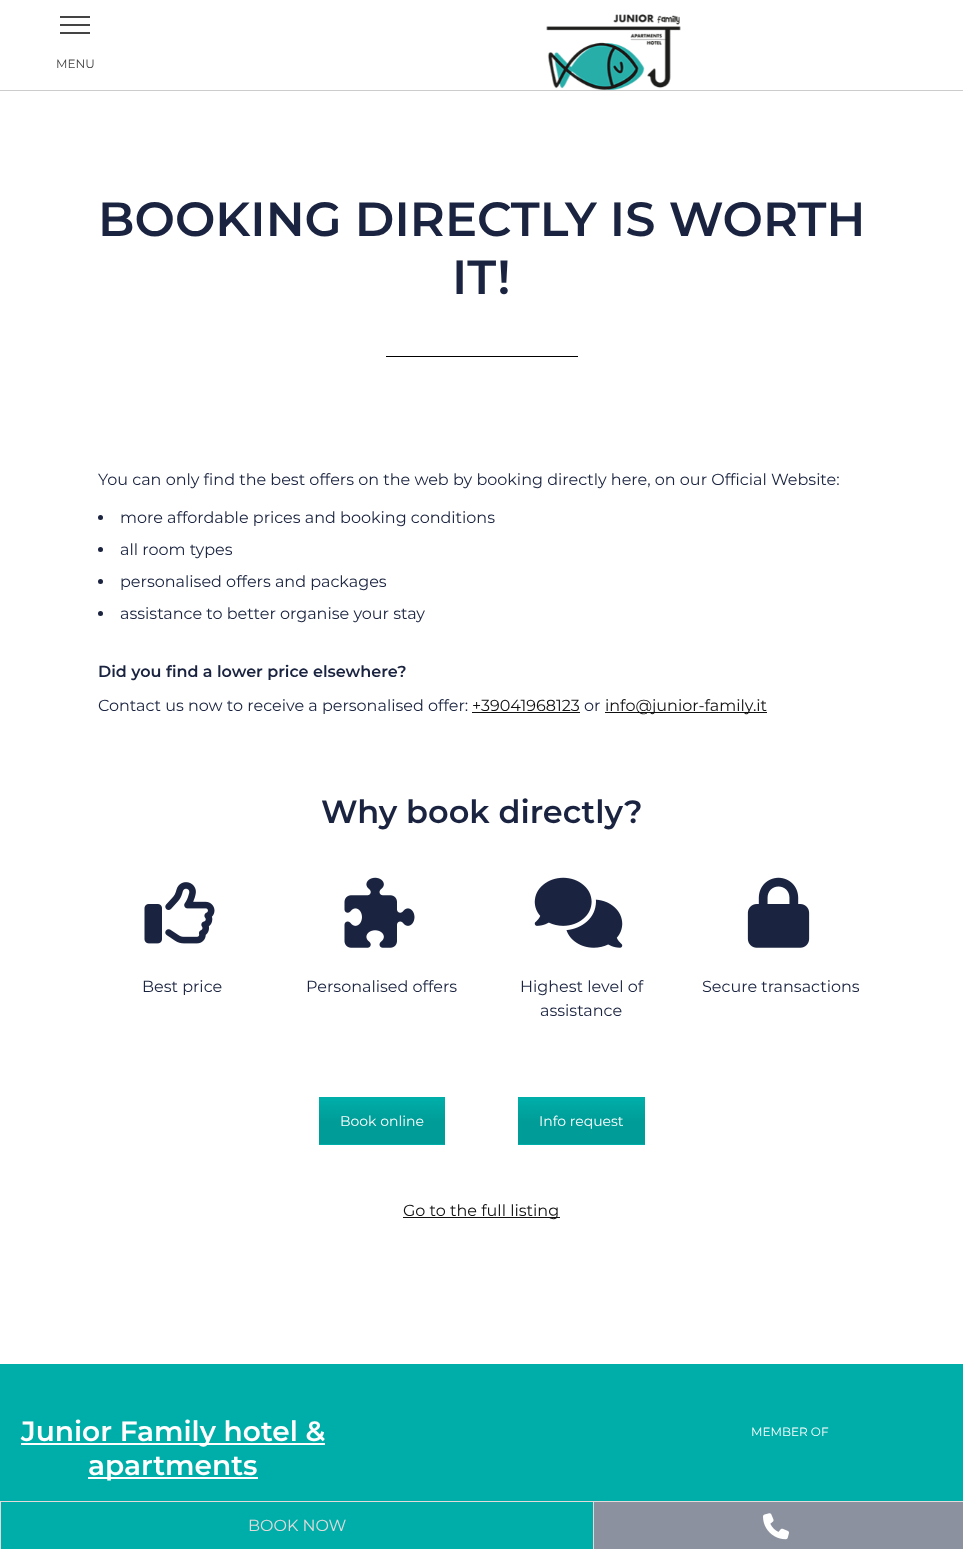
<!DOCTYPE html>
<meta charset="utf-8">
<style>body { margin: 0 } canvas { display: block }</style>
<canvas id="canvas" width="963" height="1549"></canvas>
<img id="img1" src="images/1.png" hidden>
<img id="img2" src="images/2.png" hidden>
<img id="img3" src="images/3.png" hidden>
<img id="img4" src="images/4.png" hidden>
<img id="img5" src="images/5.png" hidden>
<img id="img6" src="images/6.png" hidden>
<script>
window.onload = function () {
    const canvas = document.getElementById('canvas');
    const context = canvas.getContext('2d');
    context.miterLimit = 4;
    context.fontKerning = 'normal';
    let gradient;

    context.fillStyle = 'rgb(255, 255, 255)';
    context.fillRect(0, 0, 963, 1549);
    context.fillStyle = 'rgb(68, 68, 68)';
    context.fillRect(60, 24, 30, 2);
    context.fillRect(60, 16, 30, 2);
    context.fillRect(60, 32, 30, 2);
    context.fillStyle = 'rgb(204, 204, 204)';
    context.fillRect(0, 90, 963, 1);
    context.drawImage(document.getElementById('img1'), 546, 14, 135, 76);
    context.fillStyle = 'rgb(0, 0, 0)';
    context.fillRect(386, 356, 192, 1);
    context.fillStyle = 'rgb(26, 35, 63)';
    context.beginPath();
    context.arc(100.5, 517.5, 2.5, 0, 2 * Math.PI);
    context.fill();
    context.beginPath();
    context.arc(100.5, 549.5, 2.5, 0, 2 * Math.PI);
    context.fill();
    context.beginPath();
    context.arc(100.5, 581.5, 2.5, 0, 2 * Math.PI);
    context.fill();
    context.beginPath();
    context.arc(100.5, 613.5, 2.5, 0, 2 * Math.PI);
    context.fill();
    context.fillStyle = 'rgb(17, 17, 17)';
    context.fillRect(472, 712, 108, 1);
    context.fillRect(605, 712, 162, 1);
    context.drawImage(document.getElementById('img2'), 144, 882, 71, 62);
    context.drawImage(document.getElementById('img3'), 344, 877, 71, 71);
    context.drawImage(document.getElementById('img4'), 534, 877, 89, 71);
    context.drawImage(document.getElementById('img5'), 747, 877, 63, 71);
    context.fillStyle = 'rgb(0, 174, 169)';
    context.fillRect(319, 1097, 126, 48);
    gradient = context.createLinearGradient(444, 1098, 444, 1144);
    gradient.addColorStop(0, 'rgb(0, 174, 169)');
    gradient.addColorStop(0.5, 'rgb(0, 157, 152)');
    gradient.addColorStop(1, 'rgb(0, 157, 152)');
    context.fillStyle = gradient;
    context.fillRect(319, 1101, 126, 43);
    context.fillStyle = 'rgb(0, 174, 169)';
    context.fillRect(518, 1097, 127, 48);
    gradient = context.createLinearGradient(644, 1098, 644, 1144);
    gradient.addColorStop(0, 'rgb(0, 174, 169)');
    gradient.addColorStop(0.5, 'rgb(0, 157, 152)');
    gradient.addColorStop(1, 'rgb(0, 157, 152)');
    context.fillStyle = gradient;
    context.fillRect(518, 1101, 127, 43);
    context.fillStyle = 'rgb(17, 17, 17)';
    context.fillRect(403, 1217, 157, 1);
    context.fillStyle = 'rgb(0, 174, 169)';
    context.fillRect(0, 1364, 963, 137);
    context.fillStyle = 'rgb(255, 255, 255)';
    context.fillRect(21, 1443, 304, 2);
    context.fillRect(88, 1477, 170, 2);
    context.fillStyle = 'rgb(140, 145, 159)';
    context.fillRect(594, 1502, 369, 47);
    context.fillStyle = 'rgb(226, 218, 219)';
    context.fillRect(0, 1501, 963, 1);
    context.fillStyle = 'rgb(0, 174, 169)';
    context.fillRect(1, 1502, 592, 47);
    context.fillStyle = 'rgb(226, 218, 219)';
    context.fillRect(593, 1502, 1, 47);
    context.fillRect(0, 1502, 1, 47);
    context.drawImage(document.getElementById('img6'), 763, 1513, 26, 27);
    context.font = '12px Montserrat';
    context.fillStyle = 'rgb(68, 68, 68)';
    context.fillText('MENU', 56, 68);
    context.font = '600 48px Montserrat';
    context.fillStyle = 'rgb(26, 35, 63)';
    context.fillText('BOOKING DIRECTLY IS WORTH', 98, 236);
    context.fillText('IT!', 452, 294);
    context.font = '16px Montserrat';
    context.fillText('You can only find the best offers on the web by booking directly here, on our Official Website:', 98, 485);
    context.fillText('more affordable prices and booking conditions', 120, 523);
    context.fillText('all room types', 120, 555);
    context.fillText('personalised offers and packages', 120, 587);
    context.fillText('assistance to better organise your stay', 120, 619);
    context.font = '600 16px Montserrat';
    context.fillText('Did you find a lower price elsewhere?', 98, 677);
    context.font = '16px Montserrat';
    context.fillText('Contact us now to receive a personalised offer:', 98, 711);
    context.fillStyle = 'rgb(17, 17, 17)';
    context.fillText('+39041968123', 472, 711);
    context.fillStyle = 'rgb(26, 35, 63)';
    context.fillText('or', 584, 711);
    context.fillStyle = 'rgb(17, 17, 17)';
    context.fillText('info@junior-family.it', 605, 711);
    context.font = '600 32px Montserrat';
    context.fillStyle = 'rgb(26, 35, 63)';
    context.fillText('Why book directly?', 321, 823);
    context.font = '16px Montserrat';
    context.fillText('Best price', 142, 992);
    context.fillText('Personalised offers', 306, 992);
    context.fillText('Highest level of', 520, 992);
    context.fillText('assistance', 540, 1016);
    context.fillText('Secure transactions', 702, 992);
    context.font = '14px Montserrat';
    context.fillStyle = 'rgb(255, 255, 255)';
    context.fillText('Book online', 340, 1126);
    context.fillText('Info request', 539, 1126);
    context.font = '16px Montserrat';
    context.fillStyle = 'rgb(17, 17, 17)';
    context.fillText('Go to the full listing', 403, 1216);
    context.font = '600 28px Montserrat';
    context.fillStyle = 'rgb(255, 255, 255)';
    context.fillText('Junior Family hotel &', 21, 1441);
    context.fillText('apartments', 88, 1475);
    context.font = '12px Montserrat';
    context.fillText('MEMBER OF', 751, 1436);
    context.font = '16px Montserrat';
    context.fillStyle = 'rgb(226, 218, 219)';
    context.fillText('BOOK NOW', 248, 1531);
};
</script>
